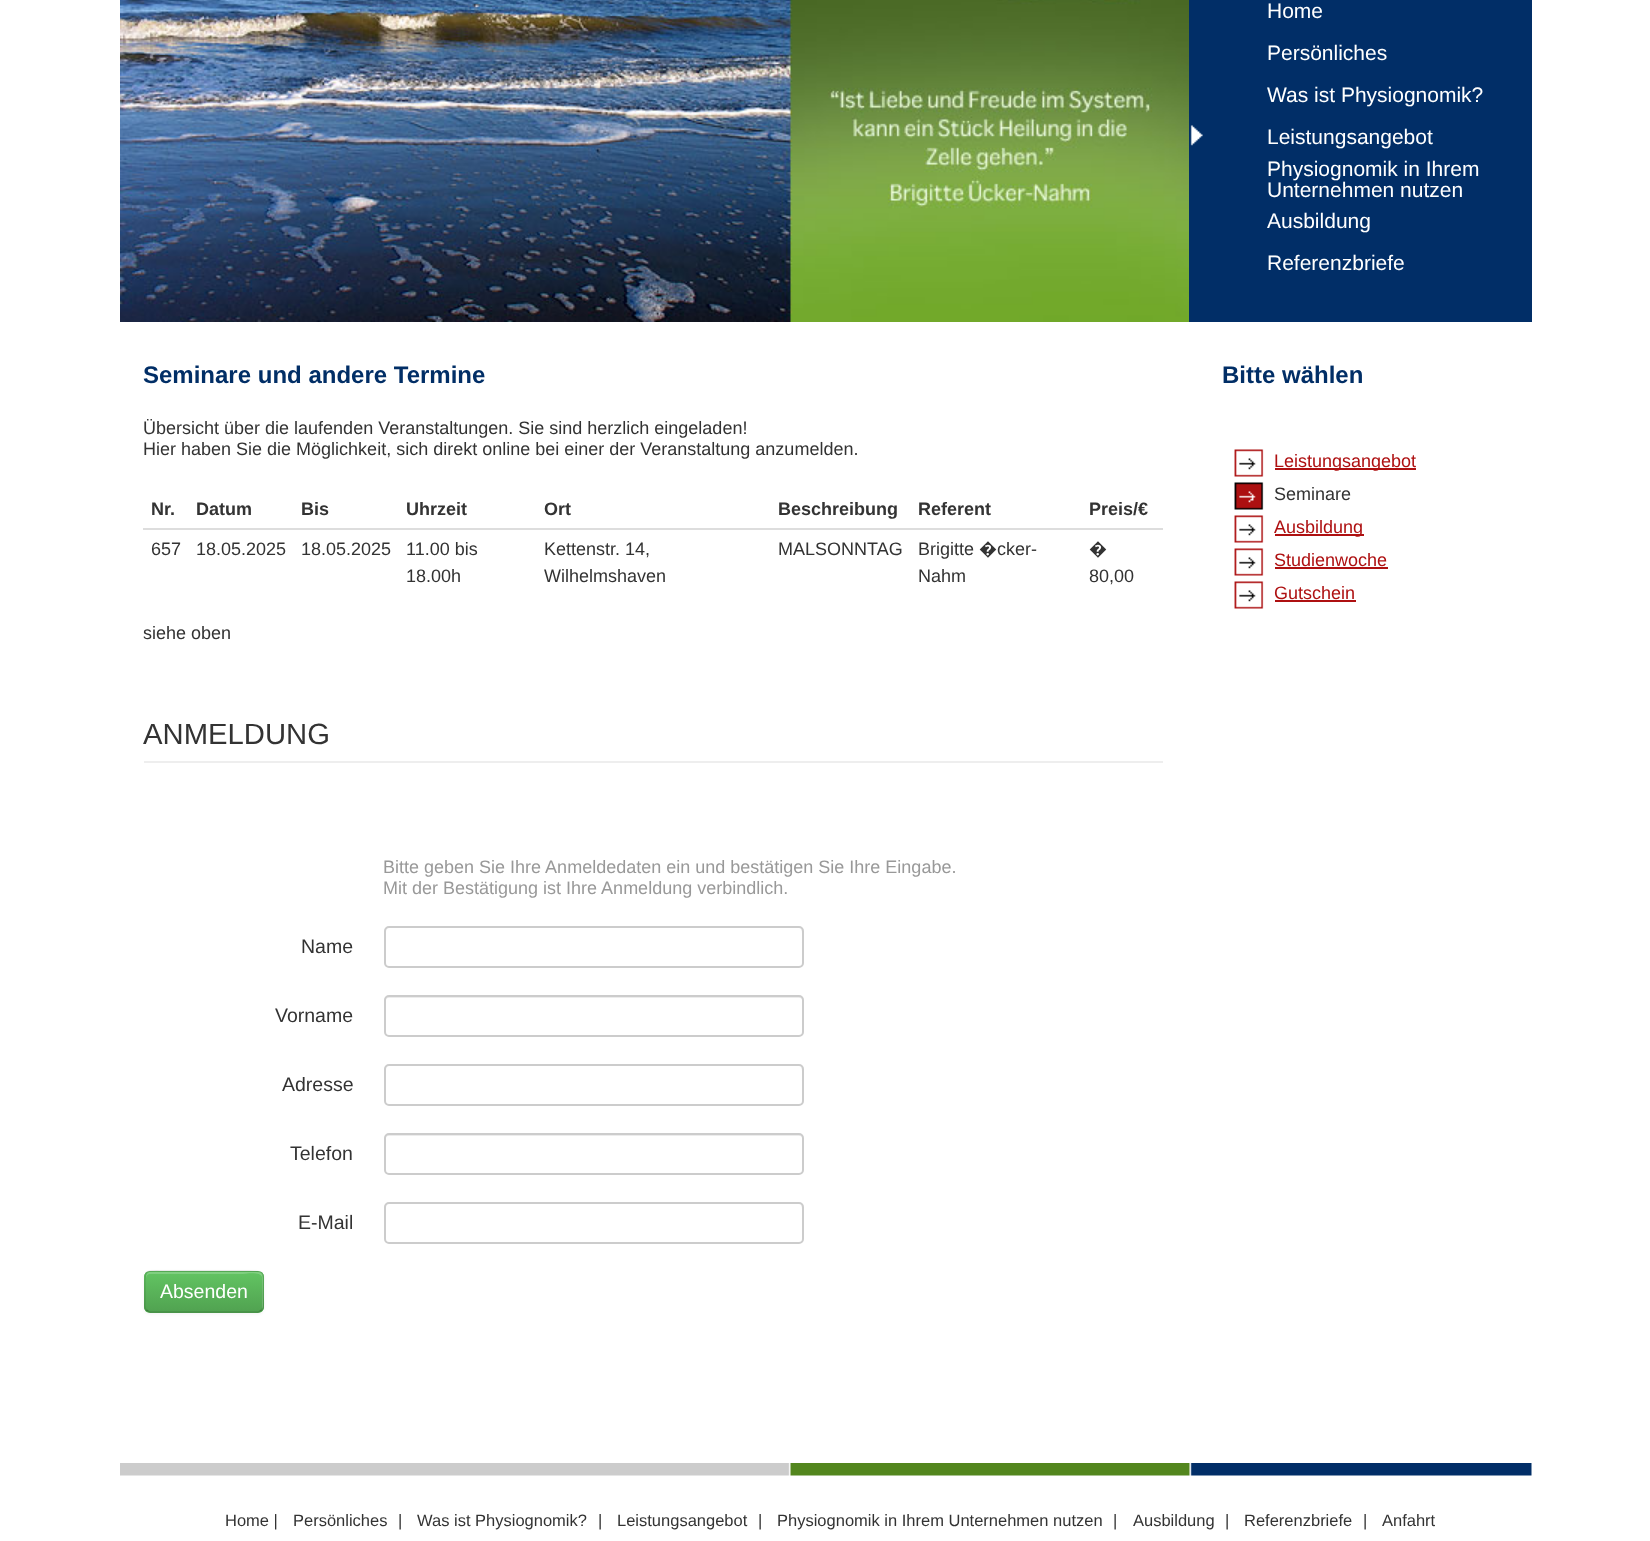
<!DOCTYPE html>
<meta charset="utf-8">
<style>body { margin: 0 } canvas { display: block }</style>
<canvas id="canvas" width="1650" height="1541"></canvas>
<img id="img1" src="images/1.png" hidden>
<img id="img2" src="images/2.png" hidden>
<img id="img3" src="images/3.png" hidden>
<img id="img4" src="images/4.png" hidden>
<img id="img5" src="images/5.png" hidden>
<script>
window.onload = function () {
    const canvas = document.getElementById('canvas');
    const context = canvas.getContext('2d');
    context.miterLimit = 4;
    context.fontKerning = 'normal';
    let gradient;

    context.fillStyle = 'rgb(255, 255, 255)';
    context.fillRect(0, 0, 1650, 1541);
    context.drawImage(document.getElementById('img1'), 120, 0, 1069, 322);
    context.fillStyle = 'rgb(1, 46, 103)';
    context.fillRect(1189, 0, 343, 322);
    context.drawImage(document.getElementById('img2'), 1190, 125, 13, 21);
    context.fillStyle = 'rgb(221, 221, 221)';
    context.fillRect(143, 528, 1020, 2);
    context.fillStyle = 'rgb(238, 238, 238)';
    context.fillRect(144, 761, 1019, 2);
    context.fillStyle = 'rgb(236, 236, 236)';
    context.beginPath();
    context.moveTo(388, 928);
    context.lineTo(800, 928);
    context.bezierCurveTo(803, 928, 802, 942, 802, 943);
    context.lineTo(802, 965);
    context.bezierCurveTo(803, 965, 803, 964, 803, 963);
    context.lineTo(803, 930);
    context.bezierCurveTo(803, 928, 802, 927, 800, 927);
    context.lineTo(389, 927);
    context.bezierCurveTo(387, 927, 386, 928, 386, 930);
    context.lineTo(386, 932);
    context.bezierCurveTo(386, 930, 387, 928, 388, 928);
    context.closePath();
    context.fill();
    context.beginPath();
    context.roundRect(385, 927, 418, 40, 4);
    context.strokeStyle = 'rgb(204, 204, 204)';
    context.lineWidth = 2;
    context.stroke();
    context.beginPath();
    context.moveTo(388, 998);
    context.lineTo(800, 998);
    context.bezierCurveTo(801, 998, 802, 999, 802, 1000);
    context.lineTo(802, 1034);
    context.bezierCurveTo(803, 1034, 803, 1033, 803, 1032);
    context.lineTo(803, 999);
    context.bezierCurveTo(803, 997, 802, 996, 800, 996);
    context.lineTo(389, 996);
    context.bezierCurveTo(387, 996, 386, 997, 386, 999);
    context.lineTo(386, 1000);
    context.bezierCurveTo(386, 999, 387, 998, 388, 998);
    context.closePath();
    context.fill();
    context.beginPath();
    context.roundRect(385, 996, 418, 40, 4);
    context.stroke();
    context.beginPath();
    context.moveTo(388, 1066);
    context.lineTo(800, 1066);
    context.bezierCurveTo(803, 1066, 802, 1080, 802, 1081);
    context.lineTo(802, 1103);
    context.bezierCurveTo(803, 1103, 803, 1102, 803, 1101);
    context.lineTo(803, 1068);
    context.bezierCurveTo(803, 1066, 802, 1065, 800, 1065);
    context.lineTo(389, 1065);
    context.bezierCurveTo(387, 1065, 386, 1066, 386, 1068);
    context.lineTo(386, 1070);
    context.bezierCurveTo(386, 1068, 387, 1066, 388, 1066);
    context.closePath();
    context.fill();
    context.beginPath();
    context.roundRect(385, 1065, 418, 40, 4);
    context.stroke();
    context.beginPath();
    context.moveTo(388, 1136);
    context.lineTo(800, 1136);
    context.bezierCurveTo(801, 1136, 802, 1137, 802, 1138);
    context.lineTo(802, 1172);
    context.bezierCurveTo(803, 1172, 803, 1171, 803, 1170);
    context.lineTo(803, 1137);
    context.bezierCurveTo(803, 1135, 802, 1134, 800, 1134);
    context.lineTo(389, 1134);
    context.bezierCurveTo(387, 1134, 386, 1135, 386, 1137);
    context.lineTo(386, 1138);
    context.bezierCurveTo(386, 1137, 387, 1136, 388, 1136);
    context.closePath();
    context.fill();
    context.beginPath();
    context.roundRect(385, 1134, 418, 40, 4);
    context.stroke();
    context.beginPath();
    context.moveTo(388, 1204);
    context.lineTo(800, 1204);
    context.bezierCurveTo(803, 1204, 802, 1218, 802, 1219);
    context.lineTo(802, 1241);
    context.bezierCurveTo(803, 1241, 803, 1240, 803, 1239);
    context.lineTo(803, 1206);
    context.bezierCurveTo(803, 1204, 802, 1203, 800, 1203);
    context.lineTo(389, 1203);
    context.bezierCurveTo(387, 1203, 386, 1204, 386, 1206);
    context.lineTo(386, 1208);
    context.bezierCurveTo(386, 1206, 387, 1204, 388, 1204);
    context.closePath();
    context.fill();
    context.beginPath();
    context.roundRect(385, 1203, 418, 40, 4);
    context.stroke();
    context.fillStyle = 'rgba(0, 0, 0, 0.05)';
    context.filter = 'blur(1.5px)';
    context.beginPath();
    context.roundRect(144, 1272, 120, 42, 6);
    context.fill();
    context.filter = 'none';
    context.fillStyle = 'rgb(91, 183, 91)';
    context.beginPath();
    context.roundRect(144, 1271, 120, 42, 6);
    context.fill();
    context.save();
    context.beginPath();
    context.roundRect(144, 1271, 120, 42, 6);
    context.clip();
    gradient = context.createLinearGradient(204, 1272, 204, 1311);
    gradient.addColorStop(0, 'rgb(98, 196, 98)');
    gradient.addColorStop(1, 'rgb(81, 163, 81)');
    context.fillStyle = gradient;
    context.fillRect(144, 1272, 120, 39);
    context.restore();
    context.fillStyle = 'rgba(255, 255, 255, 0.2)';
    context.beginPath();
    context.moveTo(150, 1274);
    context.lineTo(240, 1274);
    context.bezierCurveTo(246, 1274, 260, 1271, 262, 1277);
    context.lineTo(262, 1309);
    context.bezierCurveTo(263, 1308, 263, 1307, 263, 1306);
    context.lineTo(263, 1277);
    context.bezierCurveTo(263, 1274, 261, 1272, 258, 1272);
    context.lineTo(151, 1272);
    context.bezierCurveTo(148, 1272, 146, 1274, 146, 1277);
    context.lineTo(146, 1278);
    context.bezierCurveTo(146, 1276, 148, 1274, 150, 1274);
    context.closePath();
    context.fill();
    context.beginPath();
    context.moveTo(261.5, 1310);
    context.bezierCurveTo(260.5, 1311, 259.5, 1312, 258, 1312);
    context.lineTo(150, 1312);
    context.bezierCurveTo(148.5, 1312, 147.5, 1311, 146.5, 1310);
    context.strokeStyle = 'rgba(0, 0, 0, 0.25)';
    context.lineWidth = 1.5;
    context.stroke();
    context.beginPath();
    context.moveTo(146.5, 1310);
    context.bezierCurveTo(144, 1308, 145, 1304.5, 145, 1301.5);
    context.lineTo(145, 1291.5);
    context.bezierCurveTo(145, 1267.5, 142, 1271, 168, 1271);
    context.lineTo(240, 1271);
    context.bezierCurveTo(268.5, 1271, 263, 1268.5, 263, 1296.5);
    context.bezierCurveTo(263, 1300, 265, 1307, 261.5, 1310);
    context.strokeStyle = 'rgba(0, 0, 0, 0.1)';
    context.stroke();
    context.drawImage(document.getElementById('img3'), 1234, 449, 30, 28);
    context.fillStyle = 'rgb(174, 16, 17)';
    context.fillRect(1275, 468, 141, 2);
    context.drawImage(document.getElementById('img4'), 1234, 482, 30, 28);
    context.drawImage(document.getElementById('img3'), 1234, 515, 30, 28);
    context.fillRect(1275, 534, 89, 2);
    context.drawImage(document.getElementById('img3'), 1234, 548, 30, 28);
    context.fillRect(1275, 567, 113, 2);
    context.drawImage(document.getElementById('img3'), 1234, 581, 30, 28);
    context.fillRect(1275, 600, 81, 2);
    context.drawImage(document.getElementById('img5'), 120, 1463, 1412, 13);
    context.font = '21px Liberation Sans';
    context.fillStyle = 'rgb(255, 255, 255)';
    context.fillText('Home', 1267, 18);
    context.fillText('Persönliches', 1267, 60);
    context.fillText('Was ist Physiognomik?', 1267, 102);
    context.fillText('Leistungsangebot', 1267, 144);
    context.fillText('Physiognomik in Ihrem', 1267, 176);
    context.fillText('Unternehmen nutzen', 1267, 197);
    context.fillText('Ausbildung', 1267, 228);
    context.fillText('Referenzbriefe', 1267, 270);
    context.font = 'bold 24px Liberation Sans';
    context.fillStyle = 'rgb(1, 46, 102)';
    context.fillText('Seminare und andere Termine', 143, 383);
    context.font = '18px Liberation Sans';
    context.fillStyle = 'rgb(51, 51, 51)';
    context.fillText('Übersicht über die laufenden Veranstaltungen. Sie sind herzlich eingeladen!', 143, 434);
    context.fillText('Hier haben Sie die Möglichkeit, sich direkt online bei einer der Veranstaltung anzumelden.', 143, 455);
    context.font = 'bold 18px Liberation Sans';
    context.fillText('Nr.', 151, 515);
    context.fillText('Datum', 196, 515);
    context.fillText('Bis', 301, 515);
    context.fillText('Uhrzeit', 406, 515);
    context.fillText('Ort', 544, 515);
    context.fillText('Beschreibung', 778, 515);
    context.fillText('Referent', 918, 515);
    context.fillText('Preis/€', 1089, 515);
    context.font = '18px Liberation Sans';
    context.fillText('657', 151, 555);
    context.fillText('18.05.2025', 196, 555);
    context.fillText('18.05.2025', 301, 555);
    context.fillText('11.00 bis', 406, 555);
    context.fillText('18.00h', 406, 582);
    context.fillText('Kettenstr. 14,', 544, 555);
    context.fillText('Wilhelmshaven', 544, 582);
    context.fillText('MALSONNTAG', 778, 555);
    context.fillText('Brigitte', 918, 555);
    context.font = '18px Noto Sans';
    context.fillText('�', 979, 555);
    context.font = '18px Liberation Sans';
    context.fillText('cker-', 997, 555);
    context.fillText('Nahm', 918, 582);
    context.font = '18px Noto Sans';
    context.fillText('�', 1089, 555);
    context.font = '18px Liberation Sans';
    context.fillText('80,00', 1089, 582);
    context.fillText('siehe oben', 143, 639);
    context.font = '29.25px Liberation Sans';
    context.fillText('ANMELDUNG', 143, 744);
    context.font = '18px Liberation Sans';
    context.fillStyle = 'rgb(153, 153, 153)';
    context.fillText('Bitte geben Sie Ihre Anmeldedaten ein und bestätigen Sie Ihre Eingabe.', 383, 873);
    context.fillText('Mit der Bestätigung ist Ihre Anmeldung verbindlich.', 383, 894);
    context.font = '19.5px Liberation Sans';
    context.fillStyle = 'rgb(51, 51, 51)';
    context.fillText('Name', 301, 953);
    context.fillText('Vorname', 275, 1022);
    context.fillText('Adresse', 282, 1091);
    context.fillText('Telefon', 290, 1160);
    context.fillText('E-Mail', 298, 1229);
    context.fillStyle = 'rgb(255, 255, 255)';
    context.fillText('Absenden', 160, 1298);
    context.font = 'bold 24px Liberation Sans';
    context.fillStyle = 'rgb(1, 46, 102)';
    context.fillText('Bitte wählen', 1222, 383);
    context.font = '18px Liberation Sans';
    context.fillStyle = 'rgb(174, 16, 17)';
    context.fillText('Leistungsangebot', 1274, 467);
    context.fillStyle = 'rgb(51, 51, 51)';
    context.fillText('Seminare', 1274, 500);
    context.fillStyle = 'rgb(174, 16, 17)';
    context.fillText('Ausbildung', 1274, 533);
    context.fillText('Studienwoche', 1274, 566);
    context.fillText('Gutschein', 1274, 599);
    context.font = '16.5px Liberation Sans';
    context.fillStyle = 'rgb(51, 51, 51)';
    context.fillText('Home |', 225, 1526);
    context.fillText('Persönliches', 293, 1526);
    context.fillText('|', 398, 1526);
    context.fillText('Was ist Physiognomik?', 417, 1526);
    context.fillText('|', 598, 1526);
    context.fillText('Leistungsangebot', 617, 1526);
    context.fillText('|', 758, 1526);
    context.fillText('Physiognomik in Ihrem Unternehmen nutzen', 777, 1526);
    context.fillText('|', 1113, 1526);
    context.fillText('Ausbildung', 1133, 1526);
    context.fillText('|', 1225, 1526);
    context.fillText('Referenzbriefe', 1244, 1526);
    context.fillText('|', 1363, 1526);
    context.fillText('Anfahrt', 1382, 1526);
};
</script>
